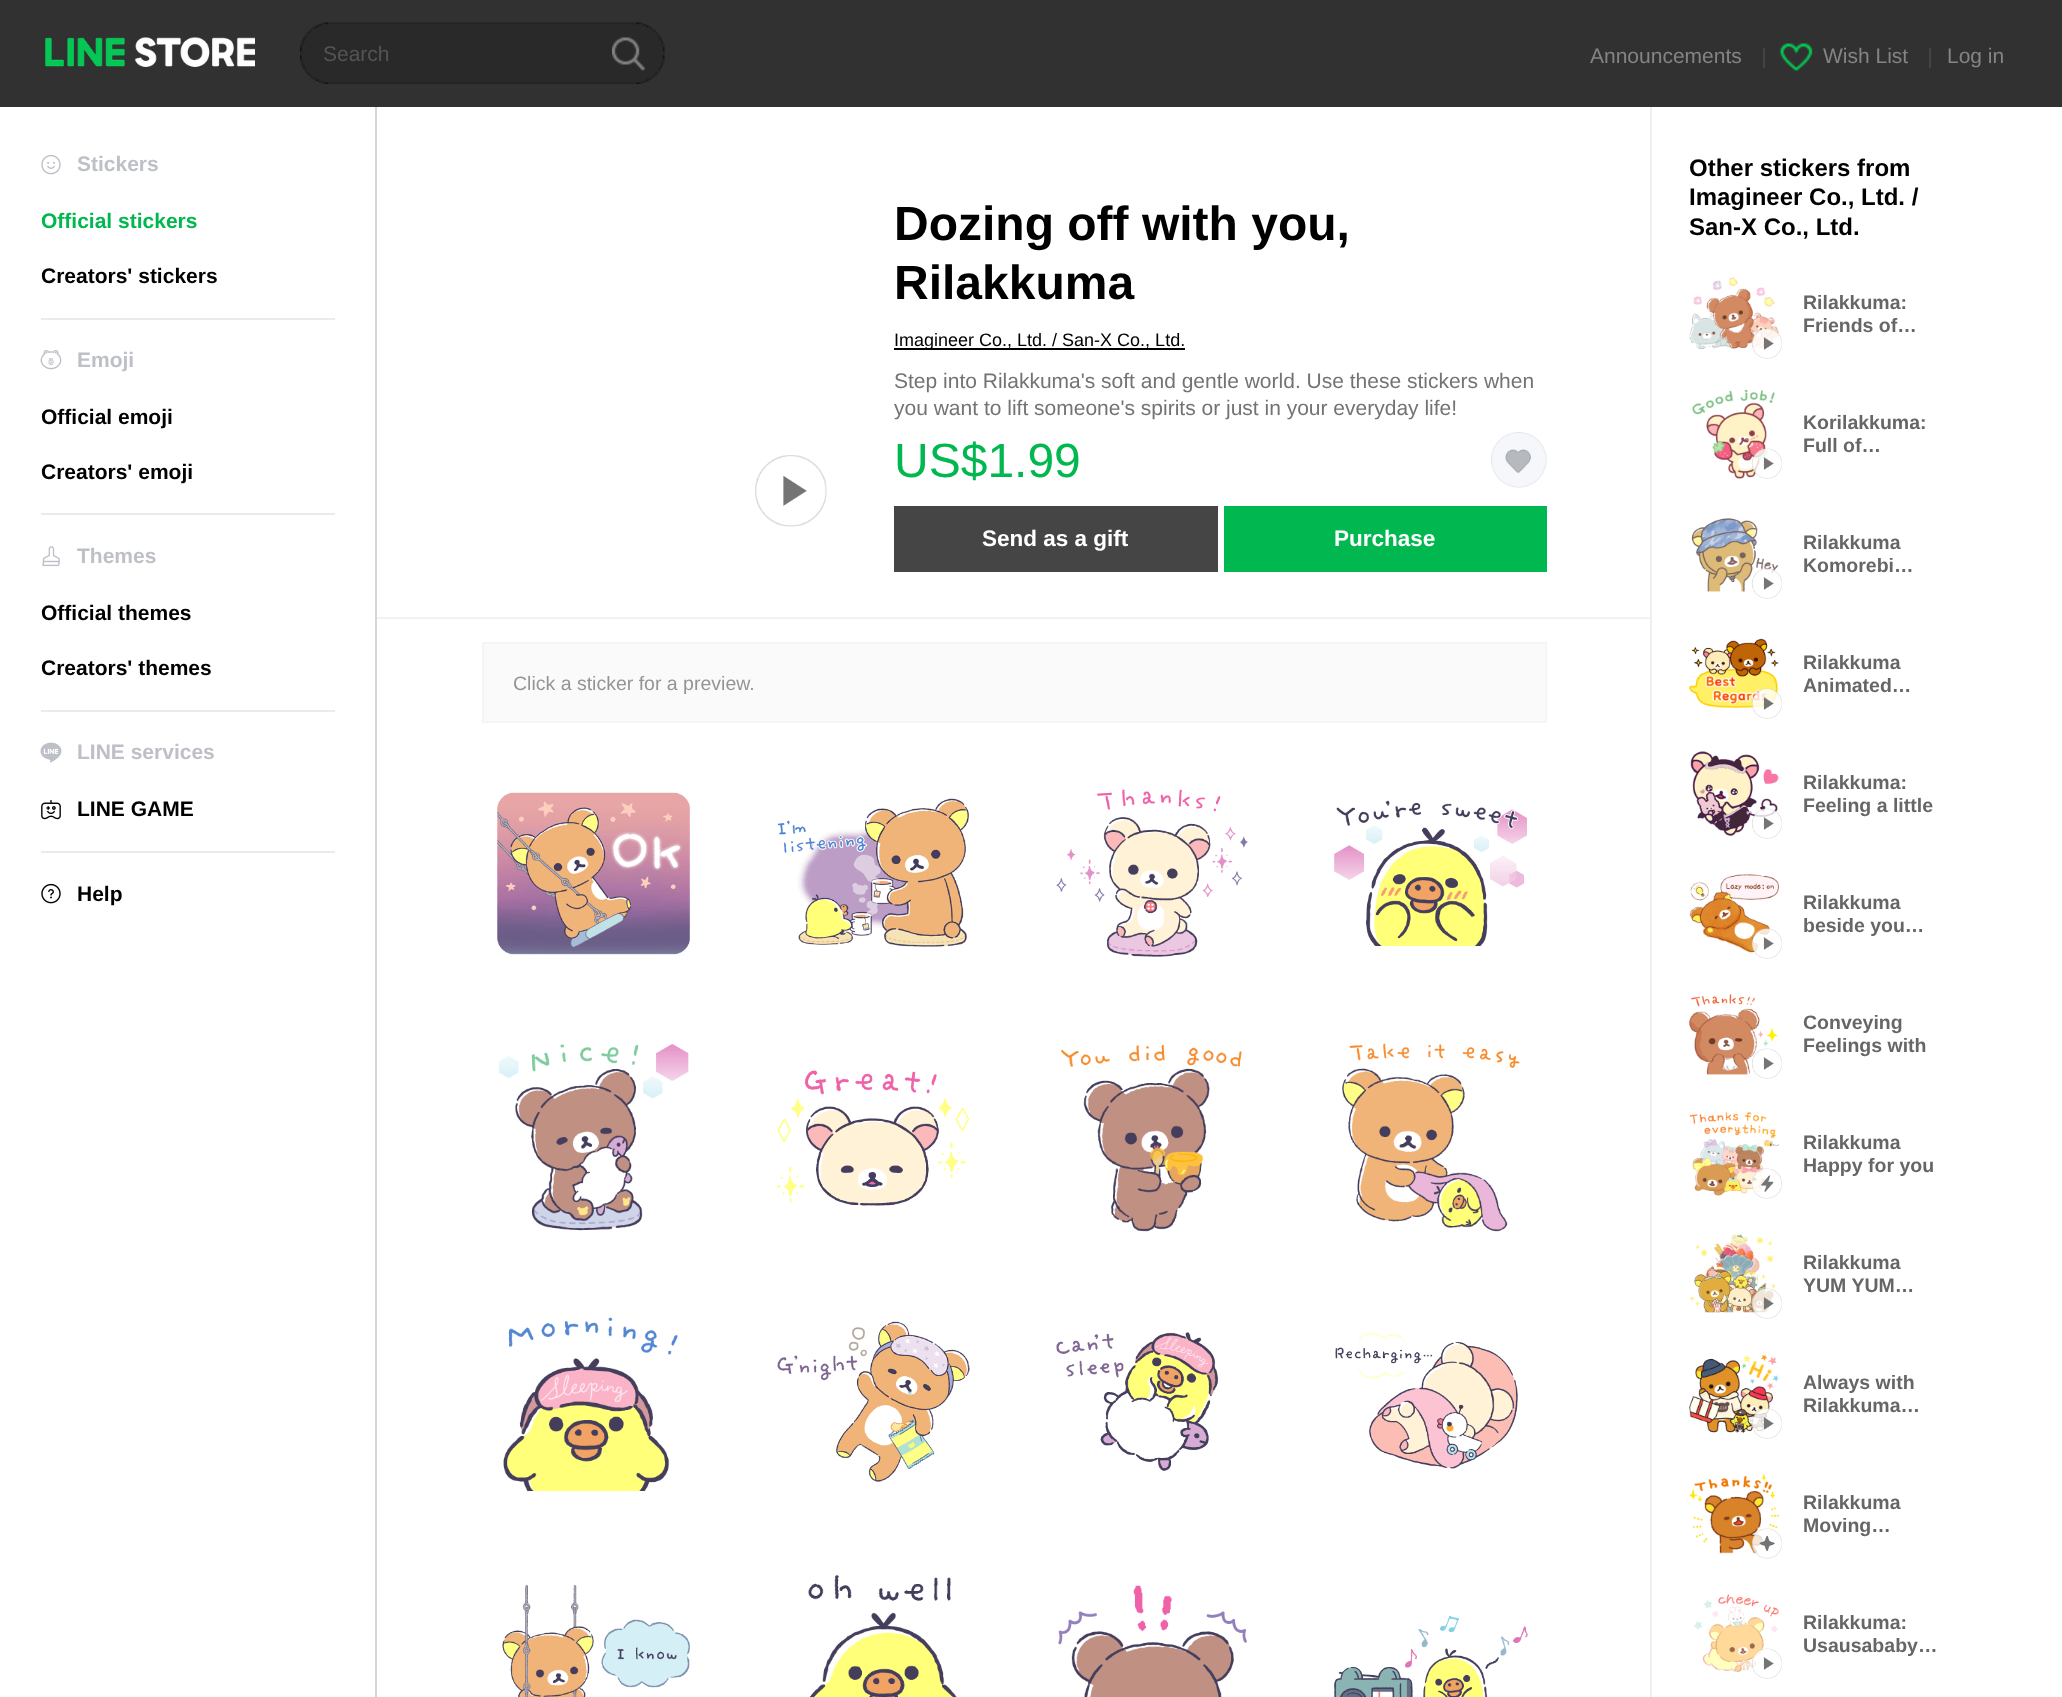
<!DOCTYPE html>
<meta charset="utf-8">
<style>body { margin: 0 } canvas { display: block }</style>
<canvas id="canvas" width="2062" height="1697"></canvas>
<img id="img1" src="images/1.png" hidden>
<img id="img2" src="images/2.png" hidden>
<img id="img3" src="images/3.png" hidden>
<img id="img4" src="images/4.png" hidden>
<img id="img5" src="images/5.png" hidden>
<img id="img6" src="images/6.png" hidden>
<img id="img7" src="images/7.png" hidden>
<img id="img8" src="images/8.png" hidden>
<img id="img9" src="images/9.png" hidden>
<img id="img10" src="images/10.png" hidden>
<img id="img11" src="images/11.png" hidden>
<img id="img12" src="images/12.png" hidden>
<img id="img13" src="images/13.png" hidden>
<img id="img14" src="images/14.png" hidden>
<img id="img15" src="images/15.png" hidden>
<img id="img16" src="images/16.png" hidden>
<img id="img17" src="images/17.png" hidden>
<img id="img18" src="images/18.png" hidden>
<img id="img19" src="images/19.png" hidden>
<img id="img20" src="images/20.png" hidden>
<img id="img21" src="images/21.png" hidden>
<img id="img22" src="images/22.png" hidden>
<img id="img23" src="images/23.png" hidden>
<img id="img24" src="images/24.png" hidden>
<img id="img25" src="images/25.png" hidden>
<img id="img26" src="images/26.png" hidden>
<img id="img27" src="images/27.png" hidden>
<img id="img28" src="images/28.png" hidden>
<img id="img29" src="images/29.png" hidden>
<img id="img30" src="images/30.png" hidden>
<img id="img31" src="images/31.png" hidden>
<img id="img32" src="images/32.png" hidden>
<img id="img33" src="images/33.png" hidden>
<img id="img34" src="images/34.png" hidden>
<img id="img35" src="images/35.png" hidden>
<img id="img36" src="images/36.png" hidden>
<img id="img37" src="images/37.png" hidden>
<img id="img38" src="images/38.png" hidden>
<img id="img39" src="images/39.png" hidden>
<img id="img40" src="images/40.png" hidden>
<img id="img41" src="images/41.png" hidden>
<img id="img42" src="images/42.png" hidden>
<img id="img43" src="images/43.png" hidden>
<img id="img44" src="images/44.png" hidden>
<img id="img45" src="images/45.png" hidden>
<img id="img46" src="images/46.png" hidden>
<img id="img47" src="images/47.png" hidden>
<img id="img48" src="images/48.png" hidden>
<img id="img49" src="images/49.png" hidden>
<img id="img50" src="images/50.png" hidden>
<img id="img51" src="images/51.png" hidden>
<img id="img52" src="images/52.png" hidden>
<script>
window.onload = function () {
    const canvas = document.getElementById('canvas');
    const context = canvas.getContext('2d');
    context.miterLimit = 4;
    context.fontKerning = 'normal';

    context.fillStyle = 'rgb(255, 255, 255)';
    context.fillRect(0, 0, 2062, 1697);
    context.fillStyle = 'rgb(49, 49, 49)';
    context.fillRect(0, 0, 2062, 107);
    context.drawImage(document.getElementById('img1'), 45, 37, 210, 30);
    context.drawImage(document.getElementById('img2'), 300, 22, 365, 62);
    context.drawImage(document.getElementById('img3'), 612, 37, 33, 34);
    context.fillStyle = 'rgb(68, 68, 68)';
    context.fillRect(1763, 48, 2, 20);
    context.drawImage(document.getElementById('img4'), 1780, 43, 33, 28);
    context.fillRect(1929, 48, 2, 20);
    context.drawImage(document.getElementById('img5'), 41, 154, 20, 21);
    context.fillStyle = 'rgb(235, 235, 235)';
    context.fillRect(41, 318, 294, 2);
    context.drawImage(document.getElementById('img6'), 40, 350, 22, 20);
    context.fillRect(41, 513, 294, 2);
    context.drawImage(document.getElementById('img7'), 42, 546, 18, 21);
    context.fillRect(41, 710, 294, 2);
    context.drawImage(document.getElementById('img8'), 40, 742, 22, 21);
    context.drawImage(document.getElementById('img9'), 41, 800, 20, 20);
    context.fillRect(41, 851, 294, 2);
    context.drawImage(document.getElementById('img10'), 41, 883, 20, 21);
    context.fillStyle = 'rgb(214, 214, 214)';
    context.fillRect(375, 107, 2, 1590);
    context.drawImage(document.getElementById('img11'), 755, 455, 72, 72);
    context.fillStyle = 'rgb(0, 0, 0)';
    context.fillRect(894, 348, 291, 2);
    context.drawImage(document.getElementById('img12'), 1491, 432, 56, 56);
    context.fillStyle = 'rgb(69, 69, 69)';
    context.fillRect(894, 506, 324, 66);
    context.fillStyle = 'rgb(0, 184, 79)';
    context.fillRect(1224, 506, 323, 66);
    context.fillStyle = 'rgb(242, 242, 242)';
    context.fillRect(377, 617, 1275, 2);
    context.fillStyle = 'rgb(239, 239, 239)';
    context.fillRect(1650, 107, 2, 1590);
    context.fillStyle = 'rgb(250, 250, 250)';
    context.beginPath();
    context.rect(483, 643, 1063, 79);
    context.fill();
    context.strokeStyle = 'rgb(245, 245, 245)';
    context.lineWidth = 2;
    context.stroke();
    context.drawImage(document.getElementById('img13'), 497, 792, 193, 163);
    context.drawImage(document.getElementById('img14'), 777, 798, 192, 149);
    context.drawImage(document.getElementById('img15'), 1056, 789, 192, 168);
    context.drawImage(document.getElementById('img16'), 1334, 800, 193, 146);
    context.drawImage(document.getElementById('img17'), 499, 1044, 190, 187);
    context.drawImage(document.getElementById('img18'), 777, 1070, 192, 136);
    context.drawImage(document.getElementById('img19'), 1061, 1044, 181, 188);
    context.drawImage(document.getElementById('img20'), 1342, 1043, 178, 189);
    context.drawImage(document.getElementById('img21'), 503, 1317, 175, 174);
    context.drawImage(document.getElementById('img22'), 777, 1321, 193, 161);
    context.drawImage(document.getElementById('img23'), 1056, 1332, 163, 139);
    context.drawImage(document.getElementById('img24'), 1335, 1333, 183, 136);
    context.drawImage(document.getElementById('img25'), 502, 1585, 188, 112);
    context.drawImage(document.getElementById('img26'), 808, 1574, 149, 123);
    context.drawImage(document.getElementById('img27'), 1058, 1585, 189, 112);
    context.drawImage(document.getElementById('img28'), 1334, 1616, 194, 81);
    context.drawImage(document.getElementById('img29'), 1689, 277, 90, 73);
    context.drawImage(document.getElementById('img30'), 1751, 328, 31, 31);
    context.drawImage(document.getElementById('img31'), 1692, 389, 83, 90);
    context.drawImage(document.getElementById('img32'), 1752, 448, 30, 31);
    context.drawImage(document.getElementById('img33'), 1691, 518, 88, 74);
    context.drawImage(document.getElementById('img34'), 1752, 568, 30, 31);
    context.drawImage(document.getElementById('img35'), 1689, 638, 90, 70);
    context.drawImage(document.getElementById('img36'), 1751, 688, 31, 31);
    context.drawImage(document.getElementById('img37'), 1690, 751, 89, 86);
    context.drawImage(document.getElementById('img38'), 1752, 808, 30, 31);
    context.drawImage(document.getElementById('img39'), 1689, 874, 90, 79);
    context.drawImage(document.getElementById('img40'), 1751, 928, 31, 31);
    context.drawImage(document.getElementById('img41'), 1689, 994, 89, 81);
    context.drawImage(document.getElementById('img42'), 1752, 1048, 30, 31);
    context.drawImage(document.getElementById('img43'), 1689, 1112, 90, 84);
    context.drawImage(document.getElementById('img44'), 1751, 1168, 31, 31);
    context.drawImage(document.getElementById('img45'), 1689, 1234, 87, 79);
    context.drawImage(document.getElementById('img46'), 1751, 1288, 31, 31);
    context.drawImage(document.getElementById('img47'), 1689, 1354, 90, 79);
    context.drawImage(document.getElementById('img48'), 1751, 1408, 31, 31);
    context.drawImage(document.getElementById('img49'), 1689, 1474, 90, 80);
    context.drawImage(document.getElementById('img50'), 1751, 1528, 31, 31);
    context.drawImage(document.getElementById('img51'), 1694, 1594, 85, 79);
    context.drawImage(document.getElementById('img52'), 1752, 1648, 30, 31);
    context.font = '21px Liberation Sans';
    context.fillStyle = 'rgb(84, 84, 84)';
    context.fillText('Search', 323, 61);
    context.fillStyle = 'rgb(132, 132, 132)';
    context.fillText('Announcements', 1590, 63);
    context.fillText('Wish List', 1823, 63);
    context.fillText('Log in', 1947, 63);
    context.font = 'bold 21px Liberation Sans';
    context.fillStyle = 'rgb(190, 192, 199)';
    context.fillText('Stickers', 77, 171);
    context.fillStyle = 'rgb(0, 184, 79)';
    context.fillText('Official stickers', 41, 228);
    context.fillStyle = 'rgb(0, 0, 0)';
    context.fillText('Creators\' stickers', 41, 283);
    context.fillStyle = 'rgb(190, 192, 199)';
    context.fillText('Emoji', 77, 367);
    context.fillStyle = 'rgb(0, 0, 0)';
    context.fillText('Official emoji', 41, 424);
    context.fillText('Creators\' emoji', 41, 479);
    context.fillStyle = 'rgb(190, 192, 199)';
    context.fillText('Themes', 77, 563);
    context.fillStyle = 'rgb(0, 0, 0)';
    context.fillText('Official themes', 41, 620);
    context.fillText('Creators\' themes', 41, 675);
    context.fillStyle = 'rgb(190, 192, 199)';
    context.fillText('LINE services', 77, 759);
    context.fillStyle = 'rgb(0, 0, 0)';
    context.fillText('LINE GAME', 77, 816);
    context.fillText('Help', 77, 901);
    context.font = 'bold 48px Liberation Sans';
    context.fillText('Dozing off with you,', 894, 240);
    context.fillText('Rilakkuma', 894, 299);
    context.font = '18px Liberation Sans';
    context.fillText('Imagineer Co., Ltd. / San-X Co., Ltd.', 894, 346);
    context.font = '21px Liberation Sans';
    context.fillStyle = 'rgb(115, 115, 115)';
    context.fillText('Step into Rilakkuma\'s soft and gentle world. Use these stickers when', 894, 388);
    context.fillText('you want to lift someone\'s spirits or just in your everyday life!', 894, 415);
    context.font = '48px Liberation Sans';
    context.fillStyle = 'rgb(0, 184, 79)';
    context.fillText('US$1.99', 894, 477);
    context.font = 'bold 22.5px Liberation Sans';
    context.fillStyle = 'rgb(255, 255, 255)';
    context.fillText('Send as a gift', 982, 546);
    context.fillText('Purchase', 1334, 546);
    context.font = '19.5px Liberation Sans';
    context.fillStyle = 'rgb(148, 148, 148)';
    context.fillText('Click a sticker for a preview.', 513, 690);
    context.font = 'bold 24px Liberation Sans';
    context.fillStyle = 'rgb(0, 0, 0)';
    context.fillText('Other stickers from', 1689, 176);
    context.fillText('Imagineer Co., Ltd. /', 1689, 205);
    context.fillText('San-X Co., Ltd.', 1689, 235);
    context.font = 'bold 19.5px Liberation Sans';
    context.fillStyle = 'rgb(102, 102, 102)';
    context.fillText('Rilakkuma:', 1803, 309);
    context.fillText('Friends of…', 1803, 332);
    context.fillText('Korilakkuma:', 1803, 429);
    context.fillText('Full of…', 1803, 452);
    context.fillText('Rilakkuma', 1803, 549);
    context.fillText('Komorebi…', 1803, 572);
    context.fillText('Rilakkuma', 1803, 669);
    context.fillText('Animated…', 1803, 692);
    context.fillText('Rilakkuma:', 1803, 789);
    context.fillText('Feeling a little', 1803, 812);
    context.fillText('Rilakkuma', 1803, 909);
    context.fillText('beside you…', 1803, 932);
    context.fillText('Conveying', 1803, 1029);
    context.fillText('Feelings with', 1803, 1052);
    context.fillText('Rilakkuma', 1803, 1149);
    context.save();
    context.beginPath();
    context.rect(1803, 1131, 138, 45);
    context.clip();
    context.fillText('Happy for you', 1803, 1172);
    context.restore();
    context.fillText('Rilakkuma', 1803, 1269);
    context.fillText('YUM YUM…', 1803, 1292);
    context.fillText('Always with', 1803, 1389);
    context.fillText('Rilakkuma…', 1803, 1412);
    context.fillText('Rilakkuma', 1803, 1509);
    context.fillText('Moving…', 1803, 1532);
    context.fillText('Rilakkuma:', 1803, 1629);
    context.fillText('Usausababy…', 1803, 1652);
};
</script>
